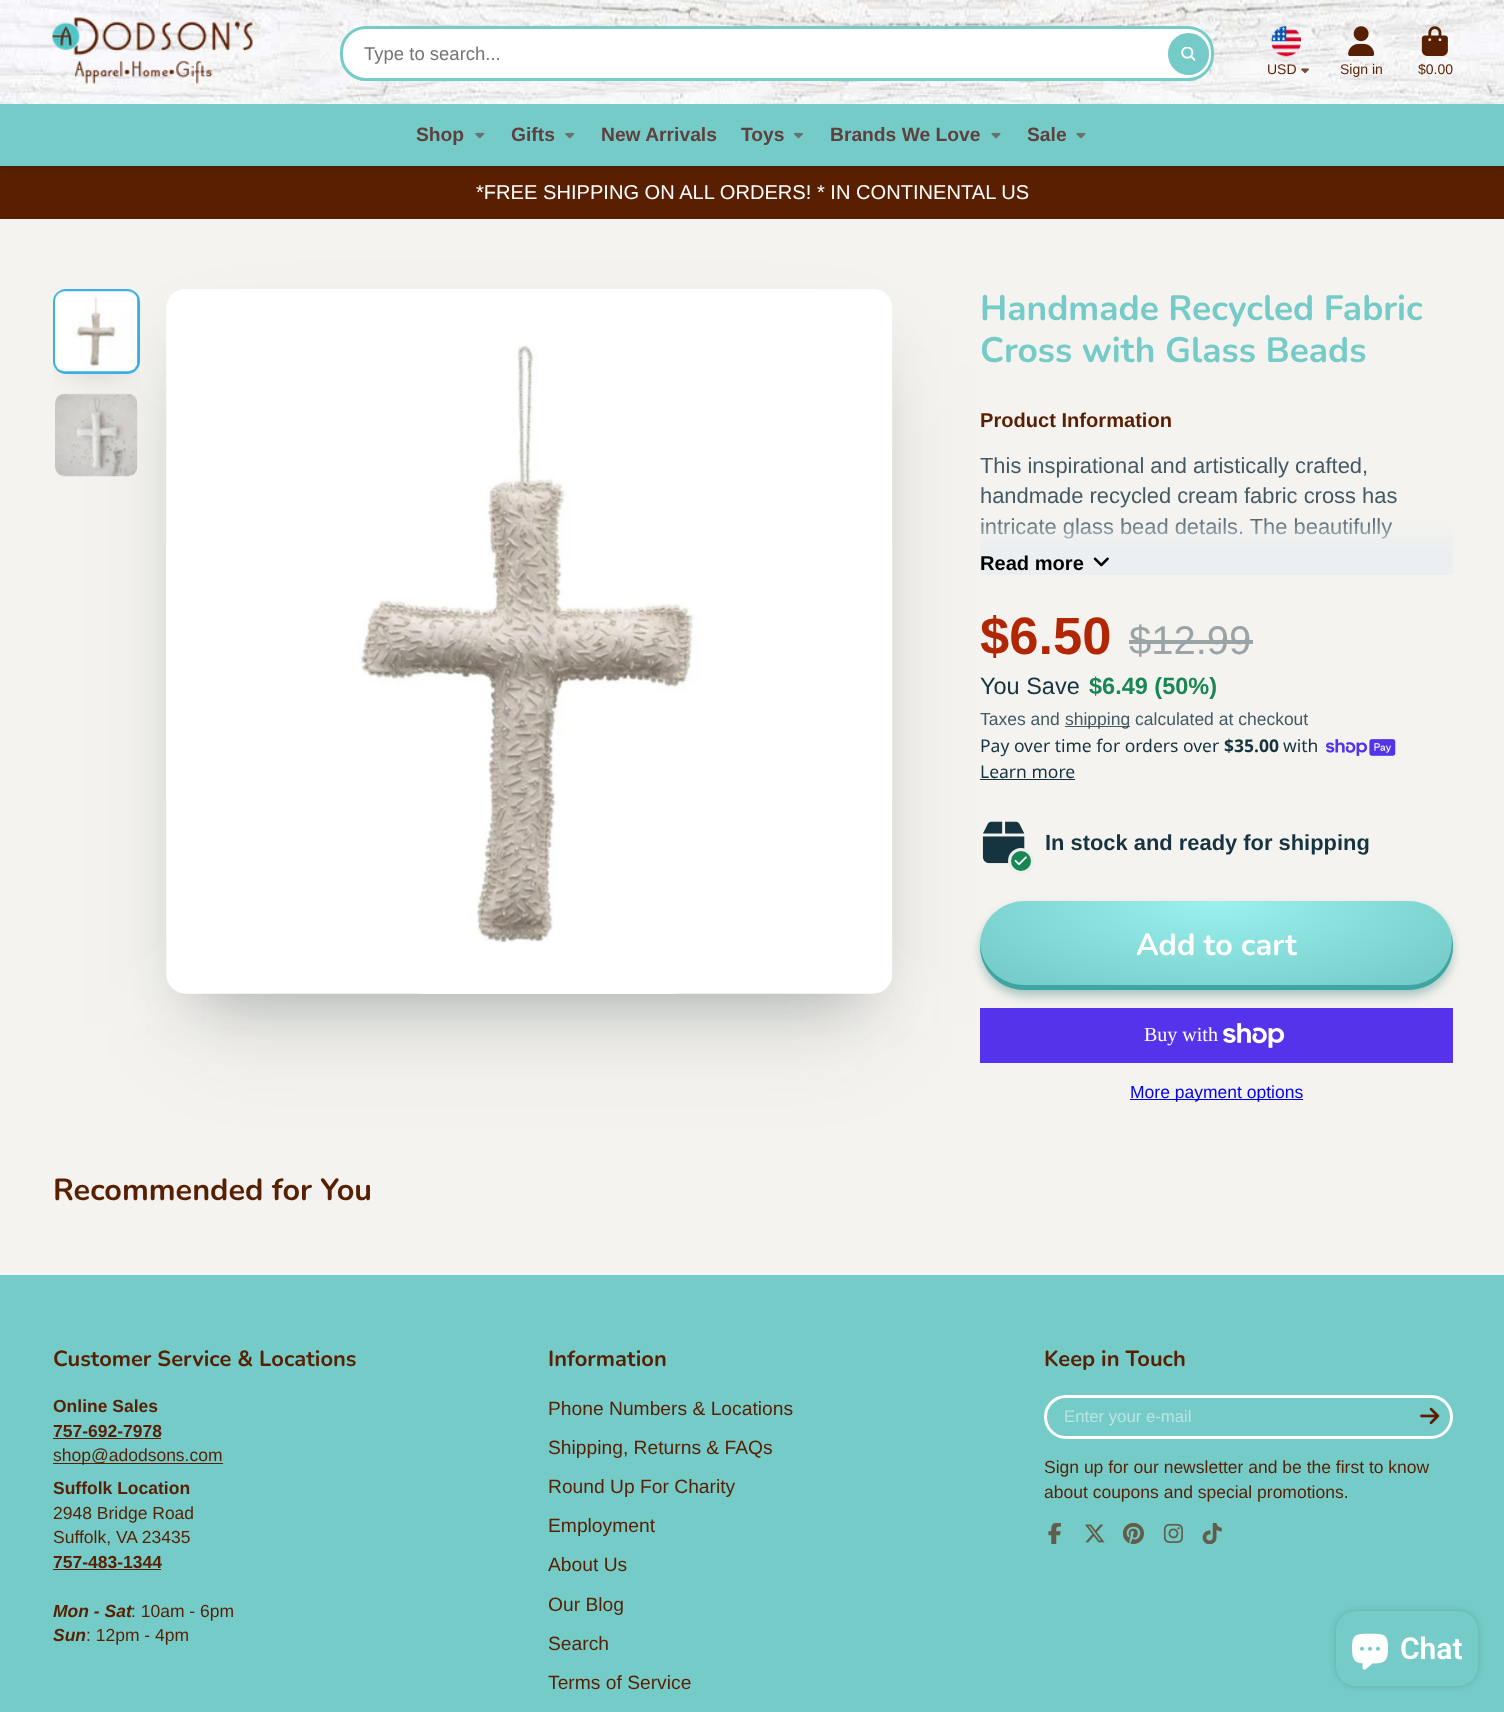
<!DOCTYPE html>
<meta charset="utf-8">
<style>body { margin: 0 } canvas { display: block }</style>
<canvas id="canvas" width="1504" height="1712"></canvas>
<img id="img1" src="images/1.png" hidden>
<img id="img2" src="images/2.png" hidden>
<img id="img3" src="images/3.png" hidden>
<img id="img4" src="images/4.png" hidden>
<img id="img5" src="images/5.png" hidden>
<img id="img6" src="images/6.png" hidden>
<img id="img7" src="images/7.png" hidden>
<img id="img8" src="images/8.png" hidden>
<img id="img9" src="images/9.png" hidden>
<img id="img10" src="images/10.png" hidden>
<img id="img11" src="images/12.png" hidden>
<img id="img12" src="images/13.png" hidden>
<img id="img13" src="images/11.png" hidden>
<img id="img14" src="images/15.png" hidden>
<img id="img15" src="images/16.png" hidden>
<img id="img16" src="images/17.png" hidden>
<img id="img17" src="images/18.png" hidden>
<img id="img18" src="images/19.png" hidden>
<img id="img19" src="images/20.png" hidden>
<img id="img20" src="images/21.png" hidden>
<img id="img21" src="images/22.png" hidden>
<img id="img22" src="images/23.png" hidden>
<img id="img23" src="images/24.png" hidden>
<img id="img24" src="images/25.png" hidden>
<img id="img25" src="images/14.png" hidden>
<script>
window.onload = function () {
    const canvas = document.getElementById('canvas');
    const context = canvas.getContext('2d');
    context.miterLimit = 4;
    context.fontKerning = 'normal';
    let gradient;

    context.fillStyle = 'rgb(245, 243, 239)';
    context.fillRect(0, 0, 1504, 1712);
    context.fillStyle = 'rgb(88, 31, 1)';
    context.fillRect(0, 166, 1504, 53);
    context.fillStyle = 'rgba(11, 25, 28, 0.12)';
    context.filter = 'blur(1px)';
    context.beginPath();
    context.rect(0, 3, 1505, 166);
    context.fill();
    context.filter = 'none';
    context.drawImage(document.getElementById('img1'), 0, 0, 1504, 104);
    context.drawImage(document.getElementById('img2'), 52, 17, 201, 67);
    context.fillStyle = 'rgb(255, 255, 255)';
    context.beginPath();
    context.roundRect(340, 26, 874, 50, 25);
    context.fill();
    context.fillRect(353, 26, 848, 3);
    context.beginPath();
    context.roundRect(341.5, 27.5, 871, 52, 24.5);
    context.fill();
    context.strokeStyle = 'rgb(117, 203, 200)';
    context.lineWidth = 3;
    context.stroke();
    context.fillStyle = 'rgb(117, 203, 200)';
    context.beginPath();
    context.roundRect(1168, 33, 41, 42, 20.5);
    context.fill();
    context.drawImage(document.getElementById('img3'), 1181, 47, 14, 14);
    context.drawImage(document.getElementById('img4'), 1271, 26, 30, 31);
    context.drawImage(document.getElementById('img5'), 1301, 68, 8, 6);
    context.drawImage(document.getElementById('img6'), 1348, 26, 27, 30);
    context.drawImage(document.getElementById('img7'), 1421, 26, 27, 30);
    context.fillRect(0, 104, 1504, 62);
    context.drawImage(document.getElementById('img8'), 475, 132, 10, 7);
    context.drawImage(document.getElementById('img8'), 565, 132, 10, 7);
    context.drawImage(document.getElementById('img9'), 794, 132, 9, 7);
    context.drawImage(document.getElementById('img10'), 991, 132, 10, 7);
    context.drawImage(document.getElementById('img10'), 1076, 132, 10, 7);
    context.save();
    context.beginPath();
    context.rect(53, 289, 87, 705);
    context.clip();
    context.fillStyle = 'rgba(15, 36, 45, 0.3)';
    context.filter = 'blur(17.5px)';
    context.beginPath();
    context.rect(70, 315, 53, 50);
    context.fill();
    context.filter = 'none';
    context.restore();
    context.beginPath();
    context.roundRect(54.5, 290.5, 84, 82, 11.5);
    context.strokeStyle = 'rgb(62, 175, 225)';
    context.stroke();
    context.drawImage(document.getElementById('img11'), 55, 291, 83, 81);
    context.drawImage(document.getElementById('img12'), 55, 393, 83, 84);
    context.fillStyle = 'rgba(15, 36, 45, 0.3)';
    context.filter = 'blur(33px)';
    context.beginPath();
    context.rect(199, 355, 661, 639);
    context.fill();
    context.filter = 'none';
    gradient = context.createLinearGradient(45, 1193, 379, 1193);
    gradient.addColorStop(0, 'rgb(245, 243, 239)');
    gradient.addColorStop(0.15, 'rgb(240, 241, 240)');
    gradient.addColorStop(0.85, 'rgb(240, 241, 240)');
    gradient.addColorStop(1, 'rgb(245, 243, 239)');
    context.fillStyle = gradient;
    context.fillRect(70, 1188, 284, 12);
    context.fillStyle = 'rgba(15, 36, 45, 0.1)';
    context.filter = 'blur(54.5px)';
    context.beginPath();
    context.rect(189, 365, 682, 661);
    context.fill();
    context.filter = 'none';
    context.drawImage(document.getElementById('img13'), 166, 289, 727, 705);
    context.fillStyle = 'rgb(154, 164, 167)';
    context.fillRect(1129, 640, 124, 4);
    context.fillStyle = 'rgb(67, 89, 99)';
    context.fillRect(1065, 726, 65, 1);
    context.drawImage(document.getElementById('img14'), 1326, 739, 70, 17);
    context.fillStyle = 'rgb(22, 51, 64)';
    context.fillRect(980, 779, 95, 1);
    context.drawImage(document.getElementById('img15'), 982, 821, 43, 43);
    context.fillStyle = 'rgb(25, 135, 84)';
    context.beginPath();
    context.arc(1021, 861, 11.5, 0, 2 * Math.PI);
    context.fill();
    context.strokeStyle = 'rgb(237, 237, 237)';
    context.stroke();
    context.drawImage(document.getElementById('img16'), 1014, 856, 13, 9);
    context.fillStyle = 'rgb(84, 51, 235)';
    context.fillRect(980, 1008, 473, 55);
    context.fillStyle = 'rgba(46, 121, 119, 0.15)';
    context.filter = 'blur(9px)';
    context.beginPath();
    context.roundRect(985, 915, 463, 80, 40);
    context.fill();
    context.filter = 'none';
    context.fillStyle = 'rgba(46, 121, 119, 0.3)';
    context.filter = 'blur(4.5px)';
    context.beginPath();
    context.roundRect(980, 906, 473, 89, 44.5);
    context.fill();
    context.filter = 'none';
    context.save();
    context.beginPath();
    context.roundRect(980, 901, 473, 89, 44.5);
    context.clip();
    context.fillStyle = 'rgba(46, 121, 119, 0.15)';
    context.filter = 'blur(9px)';
    context.beginPath();
    context.roundRect(985, 915, 463, 80, 40);
    context.fill();
    context.filter = 'none';
    context.fillStyle = 'rgba(46, 121, 119, 0.3)';
    context.filter = 'blur(4.5px)';
    context.beginPath();
    context.roundRect(980, 906, 473, 89, 44.5);
    context.fill();
    context.filter = 'none';
    context.restore();
    gradient = context.createRadialGradient(1216, 2388.37, 0, 1216, 2388.37, 334);
    gradient.addColorStop(0, 'rgb(155, 241, 238)');
    gradient.addColorStop(0.9, 'rgb(117, 203, 200)');
    context.fillStyle = gradient;
    context.beginPath();
    context.roundRect(980, 901, 473, 89, 44.5);
    context.save();
    context.clip();
    context.scale(1, 126 / 334);
    context.fillRect(0, 0, 1504, 4539);
    context.restore();
    context.fillStyle = 'rgb(62, 166, 162)';
    context.beginPath();
    context.moveTo(980, 943);
    context.lineTo(980, 946);
    context.bezierCurveTo(980, 970, 1000, 990, 1024, 990);
    context.lineTo(1408, 990);
    context.bezierCurveTo(1433, 990, 1453, 970, 1453, 946);
    context.bezierCurveTo(1453, 941, 1452, 937, 1451, 934);
    context.lineTo(1452, 941);
    context.bezierCurveTo(1452, 966, 1433, 985, 1408, 985);
    context.lineTo(1024, 985);
    context.bezierCurveTo(1001, 985, 981, 967, 980, 943);
    context.closePath();
    context.fill();
    context.drawImage(document.getElementById('img17'), 1223, 1023, 62, 25);
    context.fillStyle = 'rgb(0, 0, 238)';
    context.fillRect(1130, 1099, 173, 1);
    context.fillStyle = 'rgb(117, 203, 200)';
    context.fillRect(0, 1275, 1504, 437);
    context.fillStyle = 'rgb(88, 31, 1)';
    context.fillRect(53, 1438, 108, 1);
    context.fillRect(53, 1463, 170, 1);
    context.fillRect(53, 1569, 108, 1);
    context.beginPath();
    context.roundRect(1045.5, 1396.5, 406, 41, 20.5);
    context.strokeStyle = 'rgb(255, 255, 255)';
    context.stroke();
    context.drawImage(document.getElementById('img18'), 1420, 1407, 20, 18);
    context.drawImage(document.getElementById('img19'), 1048, 1523, 13, 21);
    context.drawImage(document.getElementById('img20'), 1085, 1524, 20, 19);
    context.drawImage(document.getElementById('img21'), 1123, 1523, 21, 21);
    context.drawImage(document.getElementById('img22'), 1163, 1523, 20, 20);
    context.drawImage(document.getElementById('img23'), 1202, 1523, 20, 21);
    context.fillStyle = 'rgba(0, 0, 0, 0.15)';
    context.filter = 'blur(3px)';
    context.beginPath();
    context.roundRect(1336, 1611, 142, 75, 20);
    context.fill();
    context.filter = 'none';
    context.fillStyle = 'rgb(117, 203, 200)';
    context.beginPath();
    context.roundRect(1336, 1611, 142, 75, 20);
    context.fill();
    context.drawImage(document.getElementById('img24'), 1352, 1633, 36, 37);
    context.font = '18.5px Liberation Sans';
    context.fillStyle = 'rgb(117, 117, 117)';
    context.fillText('Type to search...', 364, 60);
    context.font = '14px Liberation Sans';
    context.fillStyle = 'rgb(88, 31, 1)';
    context.fillText('USD', 1267, 74);
    context.fillText('Sign in', 1340, 74);
    context.fillText('$0.00', 1418, 74);
    context.font = 'bold 19.25px Liberation Sans';
    context.fillStyle = 'rgb(94, 65, 62)';
    context.fillText('Shop', 416, 141);
    context.fillText('Gifts', 511, 141);
    context.fillText('New Arrivals', 601, 141);
    context.fillText('Toys', 741, 141);
    context.fillText('Brands We Love', 830, 141);
    context.fillText('Sale', 1027, 141);
    context.font = '20.1px Liberation Sans';
    context.fillStyle = 'rgb(255, 255, 255)';
    context.fillText('*FREE SHIPPING ON ALL ORDERS! * IN CONTINENTAL US', 476, 199);
    context.font = 'bold 35.25px Nunito';
    context.fillStyle = 'rgb(117, 203, 200)';
    context.fillText('Handmade Recycled Fabric', 980, 320);
    context.fillText('Cross with Glass Beads', 980, 362);
    context.font = 'bold 20.1px Liberation Sans';
    context.fillStyle = 'rgb(88, 31, 1)';
    context.fillText('Product Information', 980, 427);
    context.font = '21.9px Liberation Sans';
    context.fillStyle = 'rgb(67, 89, 99)';
    context.fillText('This inspirational and artistically crafted,', 980, 473);
    context.fillText('handmade recycled cream fabric cross has', 980, 503);
    context.fillText('intricate glass bead details. The beautifully', 980, 534);
    gradient = context.createLinearGradient(1216, 575, 1216, 516);
    gradient.addColorStop(0.35, 'rgb(235, 239, 241)');
    gradient.addColorStop(1, 'rgba(235, 239, 241, 0)');
    context.fillStyle = gradient;
    context.fillRect(980, 518, 473, 57);
    context.font = 'bold 20.1px Liberation Sans';
    context.fillStyle = 'rgb(0, 0, 0)';
    context.fillText('Read more', 980, 570);
    context.drawImage(document.getElementById('img25'), 1093, 557, 16, 10);
    context.font = 'bold 52.5px Liberation Sans';
    context.fillStyle = 'rgb(177, 39, 4)';
    context.fillText('$6.50', 980, 654);
    context.font = '40px Liberation Sans';
    context.fillStyle = 'rgb(154, 164, 167)';
    context.fillText('$12.99', 1129, 654);
    context.font = '23.5px Liberation Sans';
    context.fillStyle = 'rgb(22, 51, 64)';
    context.fillText('You Save', 980, 694);
    context.font = 'bold 23.5px Liberation Sans';
    context.fillStyle = 'rgb(25, 135, 84)';
    context.fillText('$6.49 (50%)', 1089, 694);
    context.font = '17.5px Liberation Sans';
    context.fillStyle = 'rgb(67, 89, 99)';
    context.fillText('Taxes and', 980, 725);
    context.fillText('shipping calculated at checkout', 1065, 725);
    context.font = '17.5px Noto Sans';
    context.fillStyle = 'rgb(22, 51, 64)';
    context.fillText('Pay over time for orders over', 980, 752);
    context.font = 'bold 17.5px Noto Sans';
    context.fillText('$35.00', 1224, 752);
    context.font = '17.5px Noto Sans';
    context.fillText('with', 1283, 752);
    context.fillText('Learn more', 980, 778);
    context.font = 'bold 21.9px Liberation Sans';
    context.fillText('In stock and ready for shipping', 1045, 850);
    context.font = 'bold 30.6px Nunito';
    context.fillStyle = 'rgb(255, 255, 255)';
    context.fillText('Add to cart', 1136, 955);
    context.font = '20px Liberation Serif';
    context.fillText('Buy with', 1144, 1041);
    context.font = '17.5px Liberation Sans';
    context.fillStyle = 'rgb(0, 0, 238)';
    context.fillText('More payment options', 1130, 1098);
    context.font = 'bold 30.6px Nunito';
    context.fillStyle = 'rgb(88, 31, 1)';
    context.fillText('Recommended for You', 53, 1200);
    context.font = 'bold 21.9px Nunito';
    context.fillText('Customer Service & Locations', 53, 1366);
    context.font = 'bold 17.5px Liberation Sans';
    context.fillText('Online Sales', 53, 1412);
    context.fillText('757-692-7978', 53, 1437);
    context.font = '17.5px Liberation Sans';
    context.fillText('shop@adodsons.com', 53, 1461);
    context.font = 'bold 17.5px Liberation Sans';
    context.fillText('Suffolk Location', 53, 1494);
    context.font = '17.5px Liberation Sans';
    context.fillText('2948 Bridge Road', 53, 1519);
    context.fillText('Suffolk, VA 23435', 53, 1543);
    context.font = 'bold 17.5px Liberation Sans';
    context.fillText('757-483-1344', 53, 1568);
    context.font = 'italic bold 17.5px Liberation Sans';
    context.fillText('Mon - Sat', 53, 1617);
    context.font = '17.5px Liberation Sans';
    context.fillText(': 10am - 6pm', 131, 1617);
    context.font = 'italic bold 17.5px Liberation Sans';
    context.fillText('Sun', 53, 1641);
    context.font = '17.5px Liberation Sans';
    context.fillText(': 12pm - 4pm', 86, 1641);
    context.font = 'bold 21.9px Nunito';
    context.fillText('Information', 548, 1366);
    context.font = '19.25px Liberation Sans';
    context.fillText('Phone Numbers & Locations', 548, 1415);
    context.fillText('Shipping, Returns & FAQs', 548, 1454);
    context.fillText('Round Up For Charity', 548, 1493);
    context.fillText('Employment', 548, 1532);
    context.fillText('About Us', 548, 1571);
    context.fillText('Our Blog', 548, 1611);
    context.fillText('Search', 548, 1650);
    context.fillText('Terms of Service', 548, 1689);
    context.font = 'bold 21.9px Nunito';
    context.fillText('Keep in Touch', 1044, 1366);
    context.font = '16.75px Liberation Sans';
    context.fillStyle = 'rgb(186, 229, 228)';
    context.fillText('Enter your e-mail', 1064, 1422);
    context.font = '17.5px Liberation Sans';
    context.fillStyle = 'rgb(88, 31, 1)';
    context.fillText('Sign up for our newsletter and be the first to know', 1044, 1473);
    context.fillText('about coupons and special promotions.', 1044, 1498);
    context.font = '600 30px Roboto';
    context.fillStyle = 'rgb(255, 255, 255)';
    context.fillText('Chat', 1400, 1659);
};
</script>
